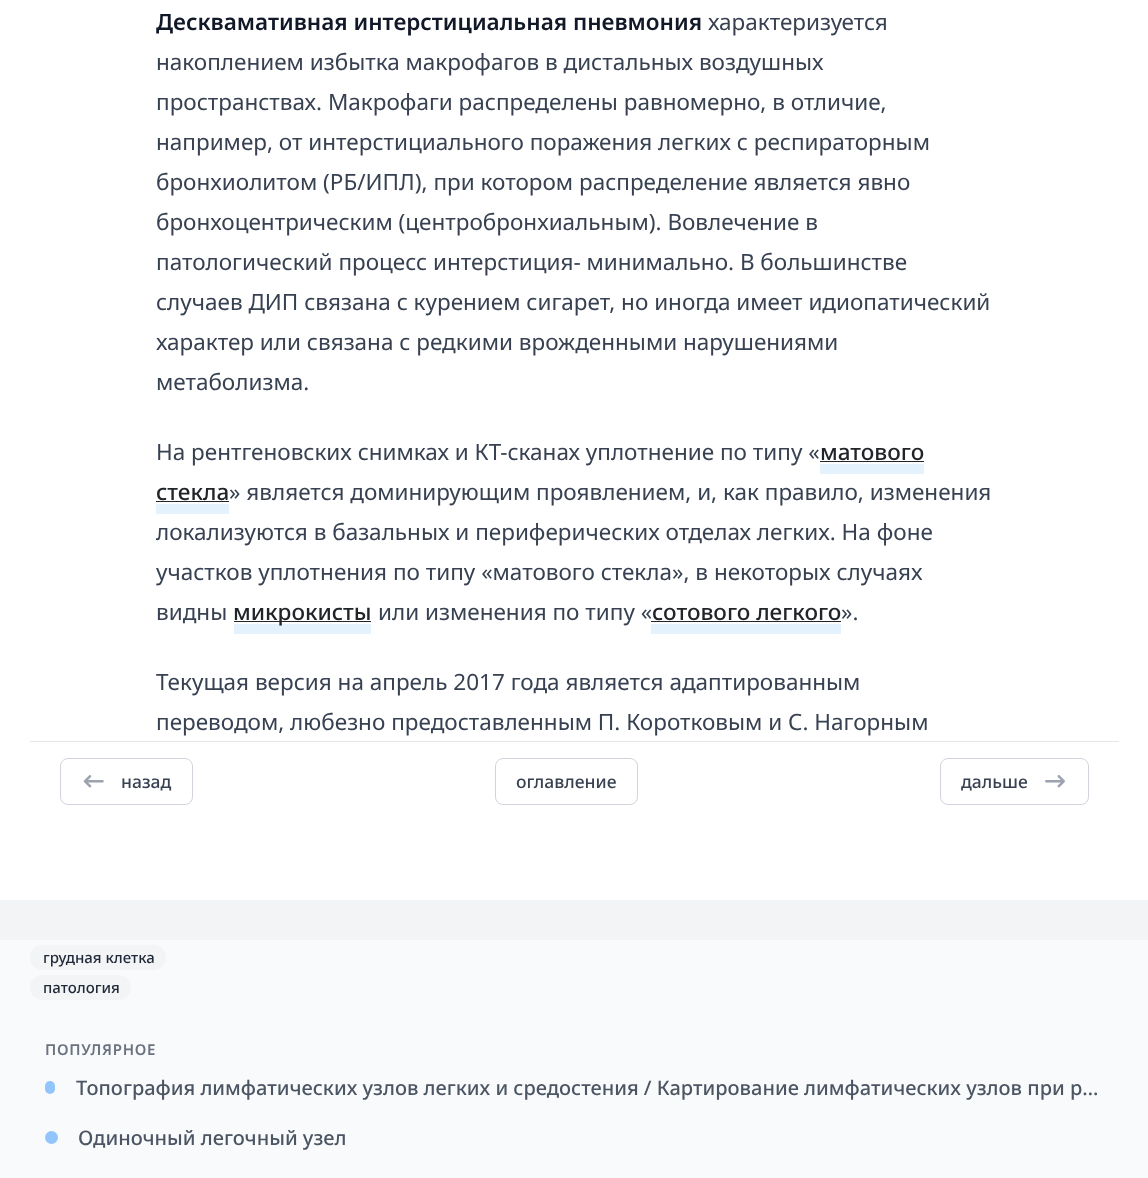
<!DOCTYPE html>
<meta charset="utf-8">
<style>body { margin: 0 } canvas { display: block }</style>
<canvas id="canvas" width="1148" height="1178"></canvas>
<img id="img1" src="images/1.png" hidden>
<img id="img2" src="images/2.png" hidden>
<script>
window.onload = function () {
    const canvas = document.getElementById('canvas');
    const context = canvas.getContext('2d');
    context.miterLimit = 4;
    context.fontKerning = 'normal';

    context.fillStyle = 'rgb(243, 244, 246)';
    context.fillRect(0, 0, 1148, 1178);
    context.fillStyle = 'rgb(255, 255, 255)';
    context.fillRect(0, 0, 1148, 900);
    context.fillStyle = 'rgb(227, 242, 253)';
    context.fillRect(820, 464, 104, 10);
    context.fillStyle = 'rgb(33, 37, 41)';
    context.fillRect(820, 461, 104, 1);
    context.fillStyle = 'rgb(227, 242, 253)';
    context.fillRect(156, 504, 73, 10);
    context.fillStyle = 'rgb(33, 37, 41)';
    context.fillRect(156, 501, 73, 1);
    context.fillStyle = 'rgb(227, 242, 253)';
    context.fillRect(234, 624, 137, 10);
    context.fillStyle = 'rgb(33, 37, 41)';
    context.fillRect(234, 621, 137, 1);
    context.fillStyle = 'rgb(227, 242, 253)';
    context.fillRect(651, 624, 190, 10);
    context.fillStyle = 'rgb(33, 37, 41)';
    context.fillRect(651, 621, 190, 1);
    context.fillStyle = 'rgb(229, 231, 235)';
    context.fillRect(30, 741, 1089, 1);
    context.beginPath();
    context.roundRect(60.5, 758.5, 132, 46, 7.5);
    context.strokeStyle = 'rgb(209, 213, 219)';
    context.stroke();
    context.drawImage(document.getElementById('img1'), 83, 775, 21, 13);
    context.beginPath();
    context.roundRect(495.5, 758.5, 142, 46, 7.5);
    context.stroke();
    context.beginPath();
    context.roundRect(940.5, 758.5, 148, 46, 7.5);
    context.stroke();
    context.drawImage(document.getElementById('img2'), 1045, 775, 20, 13);
    context.fillStyle = 'rgb(249, 250, 251)';
    context.fillRect(0, 940, 1148, 238);
    context.fillStyle = 'rgb(243, 244, 246)';
    context.beginPath();
    context.roundRect(30, 945, 136, 25, 12.5);
    context.fill();
    context.beginPath();
    context.roundRect(30, 975, 101, 25, 12.5);
    context.fill();
    context.fillStyle = 'rgb(147, 197, 253)';
    context.beginPath();
    context.roundRect(45, 1081, 10, 13, 5);
    context.fill();
    context.beginPath();
    context.arc(51.5, 1137.5, 6.5, 0, 2 * Math.PI);
    context.fill();
    context.font = '600 22.5px Noto Sans';
    context.fillStyle = 'rgb(17, 24, 39)';
    context.fillText('Десквамативная интерстициальная пневмония', 156, 30);
    context.font = '22.5px Noto Sans';
    context.fillStyle = 'rgb(55, 65, 81)';
    context.fillText('характеризуется', 708, 30);
    context.fillText('накоплением избытка макрофагов в дистальных воздушных', 156, 70);
    context.fillText('пространствах. Макрофаги распределены равномерно, в отличие,', 156, 110);
    context.fillText('например, от интерстициального поражения легких с респираторным', 156, 150);
    context.fillText('бронхиолитом (РБ/ИПЛ), при котором распределение является явно', 156, 190);
    context.fillText('бронхоцентрическим (центробронхиальным). Вовлечение в', 156, 230);
    context.fillText('патологический процесс интерстиция- минимально. В большинстве', 156, 270);
    context.fillText('случаев ДИП связана с курением сигарет, но иногда имеет идиопатический', 156, 310);
    context.fillText('характер или связана с редкими врожденными нарушениями', 156, 350);
    context.fillText('метаболизма.', 156, 390);
    context.fillText('На рентгеновских снимках и КТ-сканах уплотнение по типу «', 156, 460);
    context.font = '500 22.5px Noto Sans';
    context.fillStyle = 'rgb(33, 37, 41)';
    context.fillText('матового', 820, 460);
    context.fillText('стекла', 156, 500);
    context.font = '22.5px Noto Sans';
    context.fillStyle = 'rgb(55, 65, 81)';
    context.fillText('» является доминирующим проявлением, и, как правило, изменения', 229, 500);
    context.fillText('локализуются в базальных и периферических отделах легких. На фоне', 156, 540);
    context.fillText('участков уплотнения по типу «матового стекла», в некоторых случаях', 156, 580);
    context.fillText('видны', 156, 620);
    context.font = '500 22.5px Noto Sans';
    context.fillStyle = 'rgb(33, 37, 41)';
    context.fillText('микрокисты', 233, 620);
    context.font = '22.5px Noto Sans';
    context.fillStyle = 'rgb(55, 65, 81)';
    context.fillText('или изменения по типу «', 378, 620);
    context.font = '500 22.5px Noto Sans';
    context.fillStyle = 'rgb(33, 37, 41)';
    context.fillText('сотового легкого', 652, 620);
    context.font = '22.5px Noto Sans';
    context.fillStyle = 'rgb(55, 65, 81)';
    context.fillText('».', 841, 620);
    context.fillText('Текущая версия на апрель 2017 года является адаптированным', 156, 690);
    context.fillText('переводом, любезно предоставленным П. Коротковым и С. Нагорным', 156, 730);
    context.font = '500 17.5px Noto Sans';
    context.fillText('назад', 121, 788);
    context.fillText('оглавление', 516, 788);
    context.fillText('дальше', 961, 788);
    context.font = '500 15px Noto Sans';
    context.fillStyle = 'rgb(31, 41, 55)';
    context.fillText('грудная клетка', 43, 963);
    context.fillText('патология', 43, 993);
    context.letterSpacing = '0.75px';
    context.font = '600 15px Noto Sans';
    context.fillStyle = 'rgb(107, 114, 128)';
    context.fillText('ПОПУЛЯРНОЕ', 45, 1055);
    context.letterSpacing = '0px';
    context.font = '500 20px Noto Sans';
    context.fillStyle = 'rgb(75, 85, 99)';
    context.fillText('Топография лимфатических узлов легких и средостения / Картирование лимфатических узлов при р…', 76, 1095);
    context.fillText('Одиночный легочный узел', 78, 1145);
};
</script>
